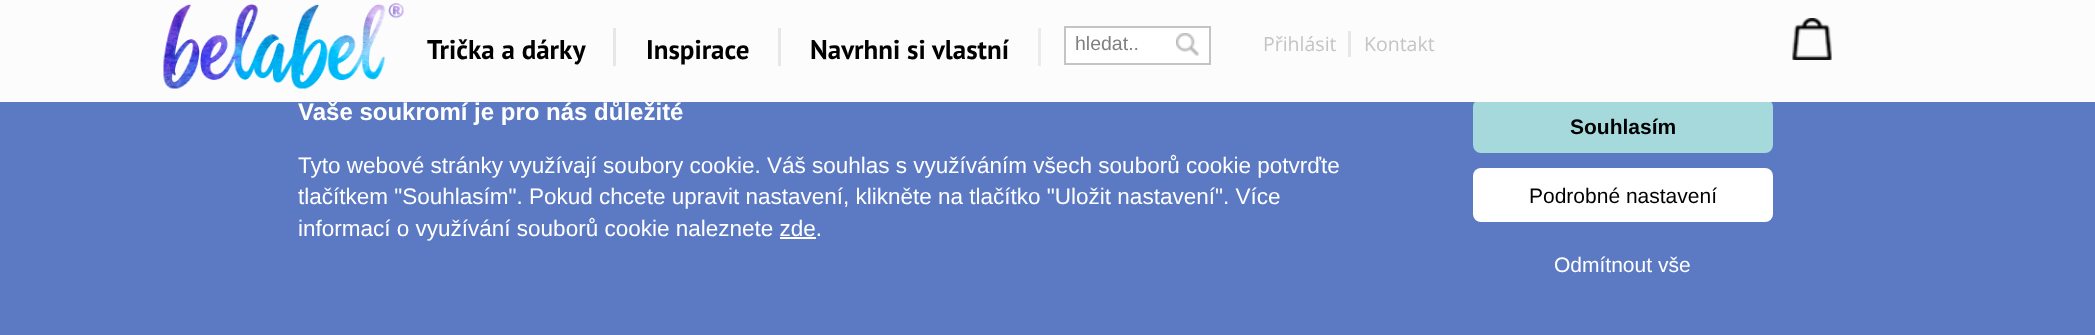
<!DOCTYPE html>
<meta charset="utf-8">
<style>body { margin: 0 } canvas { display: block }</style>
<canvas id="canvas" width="2095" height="335"></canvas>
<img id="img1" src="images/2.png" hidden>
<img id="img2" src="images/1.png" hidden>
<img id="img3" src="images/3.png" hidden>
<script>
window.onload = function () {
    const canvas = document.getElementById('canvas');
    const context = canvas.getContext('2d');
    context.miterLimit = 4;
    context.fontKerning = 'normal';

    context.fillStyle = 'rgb(92, 122, 195)';
    context.fillRect(0, 0, 2095, 335);
    context.fillStyle = 'rgb(255, 255, 255)';
    context.fillRect(780, 237, 36, 2);
    context.fillStyle = 'rgb(166, 217, 220)';
    context.beginPath();
    context.roundRect(1473, 99, 300, 54, 8);
    context.fill();
    context.fillStyle = 'rgb(255, 255, 255)';
    context.beginPath();
    context.roundRect(1473, 168, 300, 54, 8);
    context.fill();
    context.font = 'bold 24px Liberation Sans';
    context.fillText('Vaše soukromí je pro nás důležité', 298, 120);
    context.fillStyle = 'rgb(252, 252, 252)';
    context.fillRect(0, 0, 2095, 102);
    context.fillStyle = 'rgb(255, 255, 255)';
    context.beginPath();
    context.rect(1065, 27, 145, 37);
    context.fill();
    context.strokeStyle = 'rgb(196, 196, 196)';
    context.lineWidth = 2;
    context.stroke();
    context.drawImage(document.getElementById('img1'), 1176, 33, 23, 23);
    context.fillStyle = 'rgb(235, 235, 235)';
    context.fillRect(1038, 28, 3, 38);
    context.font = 'bold 27px PT Sans';
    context.fillStyle = 'rgb(0, 0, 0)';
    context.fillText('Navrhni si vlastní', 810, 59);
    context.fillStyle = 'rgb(231, 231, 231)';
    context.fillRect(778, 28, 3, 38);
    context.fillStyle = 'rgb(0, 0, 0)';
    context.fillText('Inspirace', 646, 59);
    context.fillStyle = 'rgb(231, 231, 231)';
    context.fillRect(613, 28, 3, 38);
    context.fillStyle = 'rgb(0, 0, 0)';
    context.fillText('Trička a dárky', 427, 59);
    context.drawImage(document.getElementById('img2'), 163, 3, 241, 86);
    context.drawImage(document.getElementById('img3'), 1792, 18, 40, 42);
    context.font = '19.5px Open Sans';
    context.fillStyle = 'rgb(196, 196, 196)';
    context.fillText('Kontakt', 1364, 51);
    context.fillStyle = 'rgb(231, 231, 231)';
    context.fillRect(1348, 31, 3, 26);
    context.fillStyle = 'rgb(196, 196, 196)';
    context.fillText('Přihlásit', 1263, 51);
    context.font = '19.5px Liberation Sans';
    context.fillStyle = 'rgb(128, 128, 128)';
    context.fillText('hledat..', 1075, 50);
    context.font = '22.5px Liberation Sans';
    context.fillStyle = 'rgb(255, 255, 255)';
    context.fillText('Tyto webové stránky využívají soubory cookie. Váš souhlas s využíváním všech souborů cookie potvrďte', 298, 173);
    context.fillText('tlačítkem "Souhlasím". Pokud chcete upravit nastavení, klikněte na tlačítko "Uložit nastavení". Více', 298, 204);
    context.fillText('informací o využívání souborů cookie naleznete zde.', 298, 236);
    context.font = 'bold 21px Liberation Sans';
    context.fillStyle = 'rgb(0, 0, 0)';
    context.fillText('Souhlasím', 1570, 134);
    context.font = '21px Liberation Sans';
    context.fillText('Podrobné nastavení', 1529, 203);
    context.fillStyle = 'rgb(255, 255, 255)';
    context.fillText('Odmítnout vše', 1554, 272);
};
</script>
